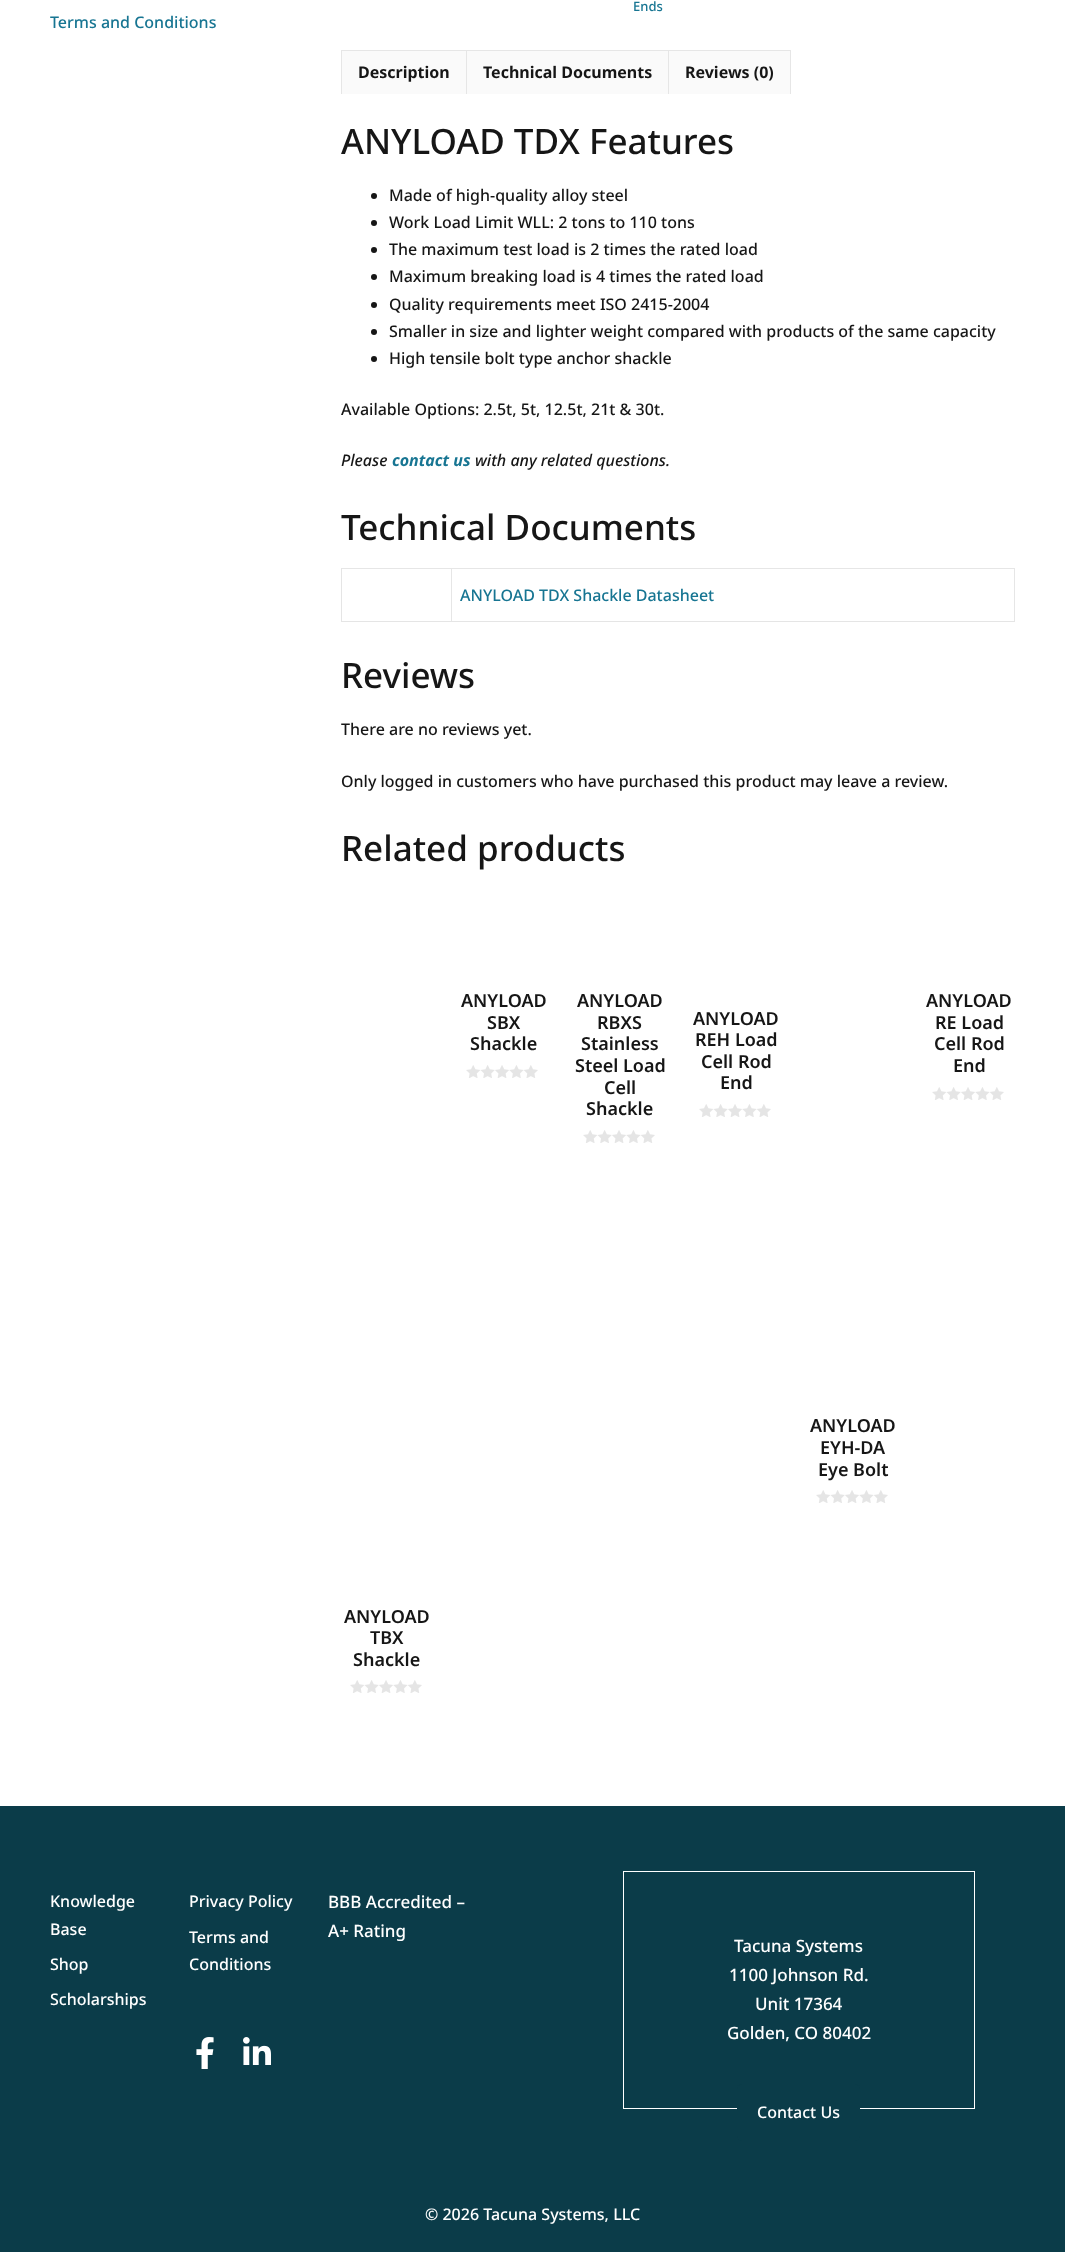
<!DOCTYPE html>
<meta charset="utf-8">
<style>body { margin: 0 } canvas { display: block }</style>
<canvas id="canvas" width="1065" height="2252"></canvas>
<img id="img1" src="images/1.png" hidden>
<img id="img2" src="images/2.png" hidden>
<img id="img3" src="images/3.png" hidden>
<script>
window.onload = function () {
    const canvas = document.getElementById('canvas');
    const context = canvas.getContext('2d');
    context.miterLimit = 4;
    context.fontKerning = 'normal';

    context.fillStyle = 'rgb(255, 255, 255)';
    context.fillRect(0, 0, 1065, 2252);
    context.fillStyle = 'rgb(250, 250, 250)';
    context.fillRect(341, 50, 450, 44);
    context.fillStyle = 'rgb(230, 230, 230)';
    context.beginPath();
    context.moveTo(341, 50);
    context.lineTo(467, 50);
    context.lineTo(466, 51);
    context.lineTo(342, 51);
    context.closePath();
    context.fill();
    context.fillStyle = 'rgba(0, 0, 0, 0.08)';
    context.beginPath();
    context.moveTo(467, 50);
    context.lineTo(467, 94);
    context.lineTo(466, 94);
    context.lineTo(466, 51);
    context.closePath();
    context.fill();
    context.beginPath();
    context.moveTo(341, 94);
    context.lineTo(341, 50);
    context.lineTo(342, 51);
    context.lineTo(342, 94);
    context.closePath();
    context.fill();
    context.fillStyle = 'rgb(230, 230, 230)';
    context.beginPath();
    context.moveTo(467, 50);
    context.lineTo(669, 50);
    context.lineTo(668, 51);
    context.lineTo(467, 51);
    context.closePath();
    context.fill();
    context.fillStyle = 'rgba(0, 0, 0, 0.08)';
    context.beginPath();
    context.moveTo(669, 50);
    context.lineTo(669, 94);
    context.lineTo(668, 94);
    context.lineTo(668, 51);
    context.closePath();
    context.fill();
    context.fillStyle = 'rgb(230, 230, 230)';
    context.beginPath();
    context.moveTo(669, 50);
    context.lineTo(791, 50);
    context.lineTo(790, 51);
    context.lineTo(669, 51);
    context.closePath();
    context.fill();
    context.fillStyle = 'rgba(0, 0, 0, 0.08)';
    context.beginPath();
    context.moveTo(791, 50);
    context.lineTo(791, 94);
    context.lineTo(790, 94);
    context.lineTo(790, 51);
    context.closePath();
    context.fill();
    context.fillStyle = 'rgb(22, 22, 22)';
    context.beginPath();
    context.arc(374, 196, 3, 0, 2 * Math.PI);
    context.fill();
    context.beginPath();
    context.arc(374, 223, 3, 0, 2 * Math.PI);
    context.fill();
    context.beginPath();
    context.arc(374, 250, 3, 0, 2 * Math.PI);
    context.fill();
    context.beginPath();
    context.arc(374, 277, 3, 0, 2 * Math.PI);
    context.fill();
    context.beginPath();
    context.arc(374, 305, 3, 0, 2 * Math.PI);
    context.fill();
    context.beginPath();
    context.arc(374, 332, 3, 0, 2 * Math.PI);
    context.fill();
    context.beginPath();
    context.arc(374, 359, 3, 0, 2 * Math.PI);
    context.fill();
    context.fillStyle = 'rgb(230, 230, 230)';
    context.beginPath();
    context.moveTo(341, 568);
    context.lineTo(1015, 568);
    context.lineTo(1015, 569);
    context.lineTo(342, 569);
    context.closePath();
    context.fill();
    context.fillStyle = 'rgba(0, 0, 0, 0.1)';
    context.beginPath();
    context.moveTo(341, 622);
    context.lineTo(341, 568);
    context.lineTo(342, 569);
    context.lineTo(342, 622);
    context.closePath();
    context.fill();
    context.fillStyle = 'rgb(230, 230, 230)';
    context.beginPath();
    context.moveTo(452, 569);
    context.lineTo(452, 622);
    context.lineTo(451, 621);
    context.lineTo(451, 569);
    context.closePath();
    context.fill();
    context.fillStyle = 'rgba(0, 0, 0, 0.1)';
    context.beginPath();
    context.moveTo(452, 622);
    context.lineTo(342, 622);
    context.lineTo(342, 621);
    context.lineTo(451, 621);
    context.closePath();
    context.fill();
    context.fillStyle = 'rgb(230, 230, 230)';
    context.beginPath();
    context.moveTo(1015, 569);
    context.lineTo(1015, 622);
    context.lineTo(1014, 621);
    context.lineTo(1014, 569);
    context.closePath();
    context.fill();
    context.fillStyle = 'rgba(0, 0, 0, 0.1)';
    context.beginPath();
    context.moveTo(1015, 622);
    context.lineTo(452, 622);
    context.lineTo(452, 621);
    context.lineTo(1014, 621);
    context.closePath();
    context.fill();
    context.drawImage(document.getElementById('img1'), 466, 1065, 72, 13);
    context.drawImage(document.getElementById('img1'), 583, 1130, 72, 13);
    context.drawImage(document.getElementById('img1'), 699, 1104, 72, 13);
    context.drawImage(document.getElementById('img1'), 932, 1087, 72, 13);
    context.drawImage(document.getElementById('img1'), 816, 1490, 72, 13);
    context.drawImage(document.getElementById('img1'), 350, 1680, 72, 13);
    context.fillStyle = 'rgb(11, 60, 73)';
    context.fillRect(0, 1806, 1065, 446);
    context.drawImage(document.getElementById('img2'), 196, 2037, 18, 32);
    context.drawImage(document.getElementById('img3'), 243, 2037, 28, 28);
    context.strokeStyle = 'rgb(255, 255, 255)';
    context.strokeRect(623.5, 1871.5, 351, 237);
    context.beginPath();
    context.roundRect(737, 2084, 123, 57, 5);
    context.fill();
    context.font = '500 16px Noto Sans';
    context.fillStyle = 'rgb(23, 117, 146)';
    context.fillText('Terms and Conditions', 50, 28);
    context.font = '500 13px Noto Sans';
    context.fillText('Ends', 633, 11);
    context.font = 'bold 16px Noto Sans';
    context.fillStyle = 'rgb(22, 22, 22)';
    context.fillText('Description', 358, 78);
    context.fillText('Technical Documents', 483, 78);
    context.fillText('Reviews (0)', 685, 78);
    context.font = '500 35px Noto Sans';
    context.fillText('ANYLOAD TDX Features', 341, 154);
    context.font = '500 16px Noto Sans';
    context.fillText('Made of high-quality alloy steel', 389, 201);
    context.fillText('Work Load Limit WLL: 2 tons to 110 tons', 389, 228);
    context.fillText('The maximum test load is 2 times the rated load', 389, 255);
    context.fillText('Maximum breaking load is 4 times the rated load', 389, 282);
    context.fillText('Quality requirements meet ISO 2415-2004', 389, 310);
    context.fillText('Smaller in size and lighter weight compared with products of the same capacity', 389, 337);
    context.fillText('High tensile bolt type anchor shackle', 389, 364);
    context.fillText('Available Options: 2.5t, 5t, 12.5t, 21t & 30t.', 341, 415);
    context.font = 'italic 500 16px Noto Sans';
    context.fillText('Please', 341, 466);
    context.font = 'italic bold 16px Noto Sans';
    context.fillStyle = 'rgb(23, 117, 146)';
    context.fillText('contact us', 392, 466);
    context.font = 'italic 500 16px Noto Sans';
    context.fillStyle = 'rgb(22, 22, 22)';
    context.fillText('with any related questions.', 475, 466);
    context.font = '500 35px Noto Sans';
    context.fillText('Technical Documents', 341, 540);
    context.font = '500 16px Noto Sans';
    context.fillStyle = 'rgb(23, 117, 146)';
    context.fillText('ANYLOAD TDX Shackle Datasheet', 460, 601);
    context.font = '500 35px Noto Sans';
    context.fillStyle = 'rgb(22, 22, 22)';
    context.fillText('Reviews', 341, 688);
    context.font = '500 16px Noto Sans';
    context.fillText('There are no reviews yet.', 341, 735);
    context.fillText('Only logged in customers who have purchased this product may leave a review.', 341, 787);
    context.font = '500 35px Noto Sans';
    context.fillText('Related products', 341, 861);
    context.font = '600 18px Noto Sans';
    context.fillText('ANYLOAD', 461, 1007);
    context.fillText('SBX', 487, 1029);
    context.fillText('Shackle', 470, 1050);
    context.fillText('ANYLOAD', 577, 1007);
    context.fillText('RBXS', 597, 1029);
    context.fillText('Stainless', 581, 1050);
    context.fillText('Steel Load', 575, 1072);
    context.fillText('Cell', 604, 1094);
    context.fillText('Shackle', 586, 1115);
    context.fillText('ANYLOAD', 693, 1025);
    context.fillText('REH Load', 695, 1046);
    context.fillText('Cell Rod', 701, 1068);
    context.fillText('End', 720, 1089);
    context.fillText('ANYLOAD', 926, 1007);
    context.fillText('RE Load', 935, 1029);
    context.fillText('Cell Rod', 934, 1050);
    context.fillText('End', 953, 1072);
    context.fillText('ANYLOAD', 810, 1432);
    context.fillText('EYH-DA', 820, 1454);
    context.fillText('Eye Bolt', 818, 1476);
    context.fillText('ANYLOAD', 344, 1623);
    context.fillText('TBX', 370, 1644);
    context.fillText('Shackle', 353, 1666);
    context.font = '500 16px Noto Sans';
    context.fillStyle = 'rgb(255, 255, 255)';
    context.fillText('Knowledge', 50, 1907);
    context.fillText('Base', 50, 1935);
    context.fillText('Shop', 50, 1970);
    context.fillText('Scholarships', 50, 2005);
    context.fillText('Privacy Policy', 189, 1907);
    context.fillText('Terms and', 189, 1943);
    context.fillText('Conditions', 189, 1970);
    context.font = '500 17px Noto Sans';
    context.fillText('BBB Accredited –', 328, 1908);
    context.fillText('A+ Rating', 328, 1937);
    context.fillText('Tacuna Systems', 734, 1952);
    context.fillText('1100 Johnson Rd.', 729, 1981);
    context.fillText('Unit 17364', 755, 2010);
    context.fillText('Golden, CO 80402', 727, 2039);
    context.font = '500 16px Noto Sans';
    context.fillText('Contact Us', 757, 2118);
    context.fillText('© 2026 Tacuna Systems, LLC', 425, 2220);
};
</script>
